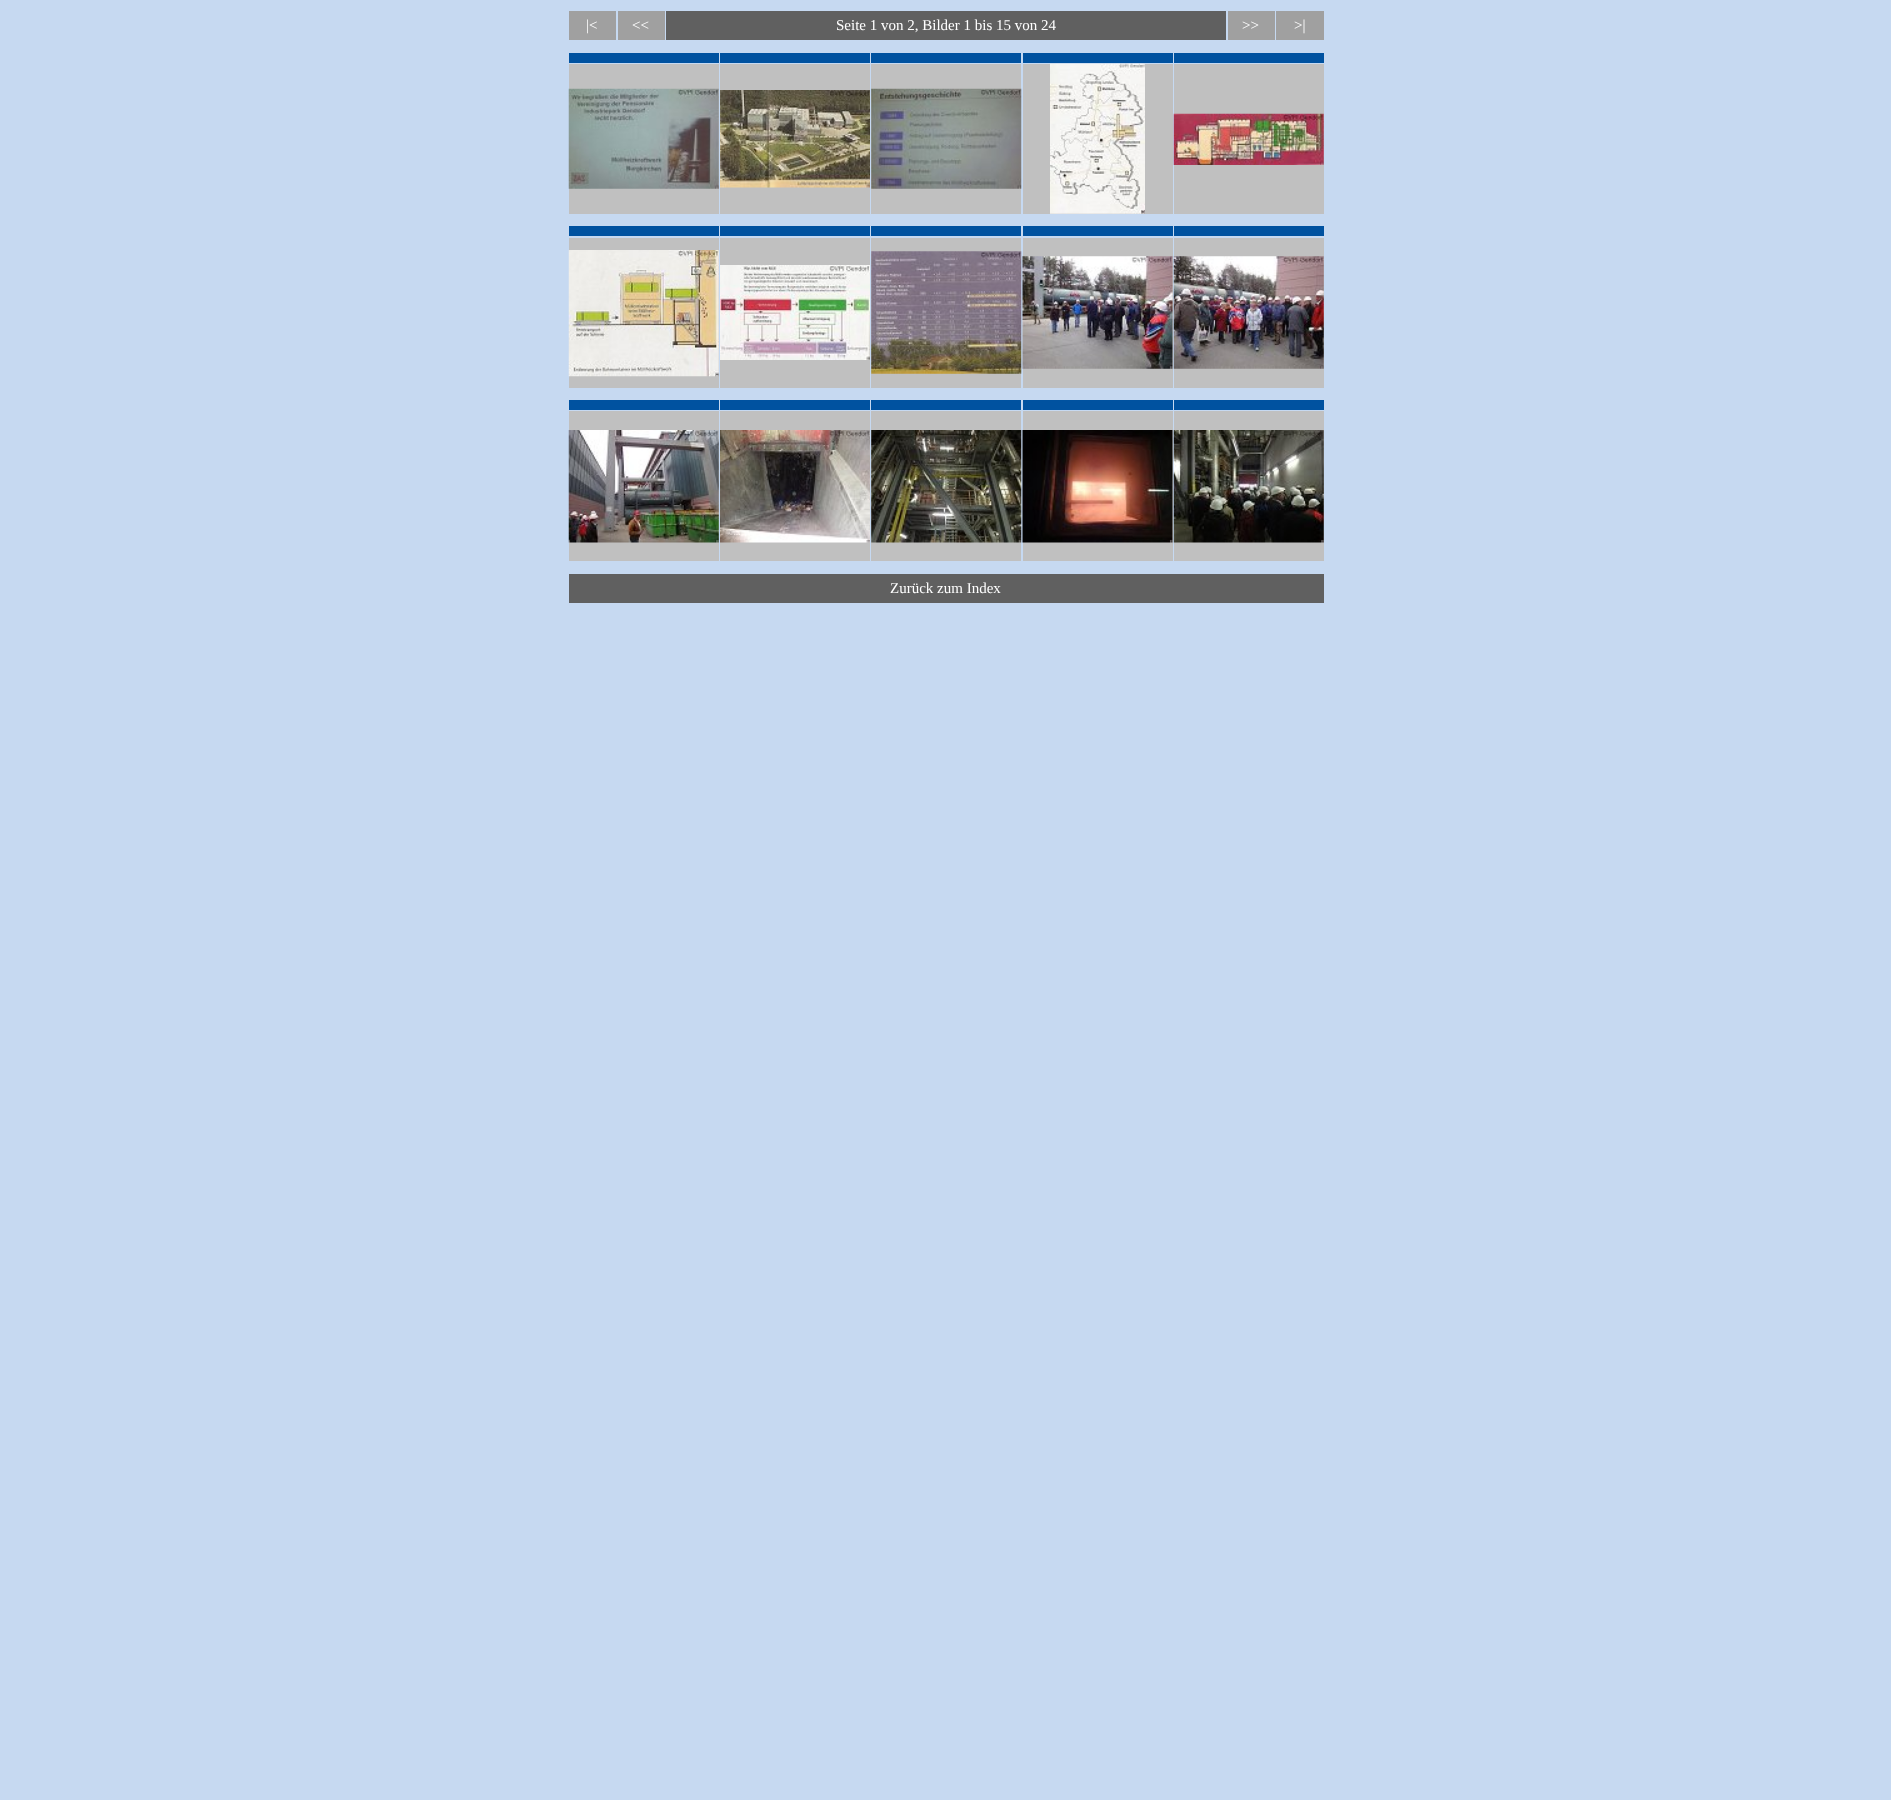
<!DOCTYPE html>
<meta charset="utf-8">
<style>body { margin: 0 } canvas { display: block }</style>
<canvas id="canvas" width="1891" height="1800"></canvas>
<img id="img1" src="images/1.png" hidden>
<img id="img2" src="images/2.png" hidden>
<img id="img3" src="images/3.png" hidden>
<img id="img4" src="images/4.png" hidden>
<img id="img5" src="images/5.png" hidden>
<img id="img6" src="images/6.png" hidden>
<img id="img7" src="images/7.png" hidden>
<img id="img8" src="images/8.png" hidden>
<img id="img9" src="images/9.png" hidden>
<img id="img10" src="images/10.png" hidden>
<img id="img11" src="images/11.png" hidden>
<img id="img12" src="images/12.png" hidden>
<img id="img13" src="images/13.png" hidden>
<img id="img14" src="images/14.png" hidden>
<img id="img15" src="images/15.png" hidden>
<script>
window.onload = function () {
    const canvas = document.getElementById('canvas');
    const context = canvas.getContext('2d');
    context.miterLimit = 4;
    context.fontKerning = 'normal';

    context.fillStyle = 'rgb(198, 217, 241)';
    context.fillRect(0, 0, 1891, 1800);
    context.fillStyle = 'rgb(160, 160, 160)';
    context.fillRect(569, 11, 47, 29);
    context.fillRect(618, 11, 47, 29);
    context.fillStyle = 'rgb(96, 96, 96)';
    context.fillRect(666, 11, 560, 29);
    context.fillStyle = 'rgb(160, 160, 160)';
    context.fillRect(1228, 11, 47, 29);
    context.fillRect(1276, 11, 48, 29);
    context.fillStyle = 'rgb(0, 82, 160)';
    context.fillRect(569, 53, 150, 10);
    context.fillRect(720, 53, 150, 10);
    context.fillRect(871, 53, 150, 10);
    context.fillRect(1023, 53, 150, 10);
    context.fillRect(1174, 53, 150, 10);
    context.fillStyle = 'rgb(192, 192, 192)';
    context.fillRect(569, 64, 150, 150);
    context.drawImage(document.getElementById('img1'), 568, 88, 151, 101);
    context.fillRect(720, 64, 150, 150);
    context.drawImage(document.getElementById('img2'), 720, 90, 150, 98);
    context.fillRect(871, 64, 150, 150);
    context.drawImage(document.getElementById('img3'), 871, 88, 151, 101);
    context.fillRect(1023, 64, 150, 150);
    context.drawImage(document.getElementById('img4'), 1050, 63, 95, 151);
    context.fillRect(1174, 64, 150, 150);
    context.drawImage(document.getElementById('img5'), 1173, 113, 151, 52);
    context.fillStyle = 'rgb(0, 82, 160)';
    context.fillRect(569, 226, 150, 10);
    context.fillRect(720, 226, 150, 10);
    context.fillRect(871, 226, 150, 10);
    context.fillRect(1023, 226, 150, 10);
    context.fillRect(1174, 226, 150, 10);
    context.fillStyle = 'rgb(192, 192, 192)';
    context.fillRect(569, 238, 150, 150);
    context.drawImage(document.getElementById('img6'), 568, 250, 151, 127);
    context.fillRect(720, 238, 150, 150);
    context.drawImage(document.getElementById('img7'), 720, 265, 150, 95);
    context.fillRect(871, 238, 150, 150);
    context.drawImage(document.getElementById('img8'), 871, 251, 151, 123);
    context.fillRect(1023, 238, 150, 150);
    context.drawImage(document.getElementById('img9'), 1022, 256, 151, 113);
    context.fillRect(1174, 238, 150, 150);
    context.drawImage(document.getElementById('img10'), 1173, 256, 151, 113);
    context.fillStyle = 'rgb(0, 82, 160)';
    context.fillRect(569, 400, 150, 10);
    context.fillRect(720, 400, 150, 10);
    context.fillRect(871, 400, 150, 10);
    context.fillRect(1023, 400, 150, 10);
    context.fillRect(1174, 400, 150, 10);
    context.fillStyle = 'rgb(192, 192, 192)';
    context.fillRect(569, 411, 150, 150);
    context.drawImage(document.getElementById('img11'), 568, 430, 151, 113);
    context.fillRect(720, 411, 150, 150);
    context.drawImage(document.getElementById('img12'), 720, 430, 150, 113);
    context.fillRect(871, 411, 150, 150);
    context.drawImage(document.getElementById('img13'), 871, 430, 151, 113);
    context.fillRect(1023, 411, 150, 150);
    context.drawImage(document.getElementById('img14'), 1022, 430, 151, 113);
    context.fillRect(1174, 411, 150, 150);
    context.drawImage(document.getElementById('img15'), 1173, 430, 151, 113);
    context.fillStyle = 'rgb(96, 96, 96)';
    context.fillRect(569, 574, 755, 29);
    context.font = '15px Liberation Serif';
    context.fillStyle = 'rgb(255, 255, 255)';
    context.fillText('|<', 586, 30);
    context.fillText('<<', 632, 30);
    context.fillText('Seite 1 von 2, Bilder 1 bis 15 von 24', 836, 30);
    context.fillText('>>', 1242, 30);
    context.fillText('>|', 1294, 30);
    context.fillText('Zurück zum Index', 890, 593);
};
</script>
